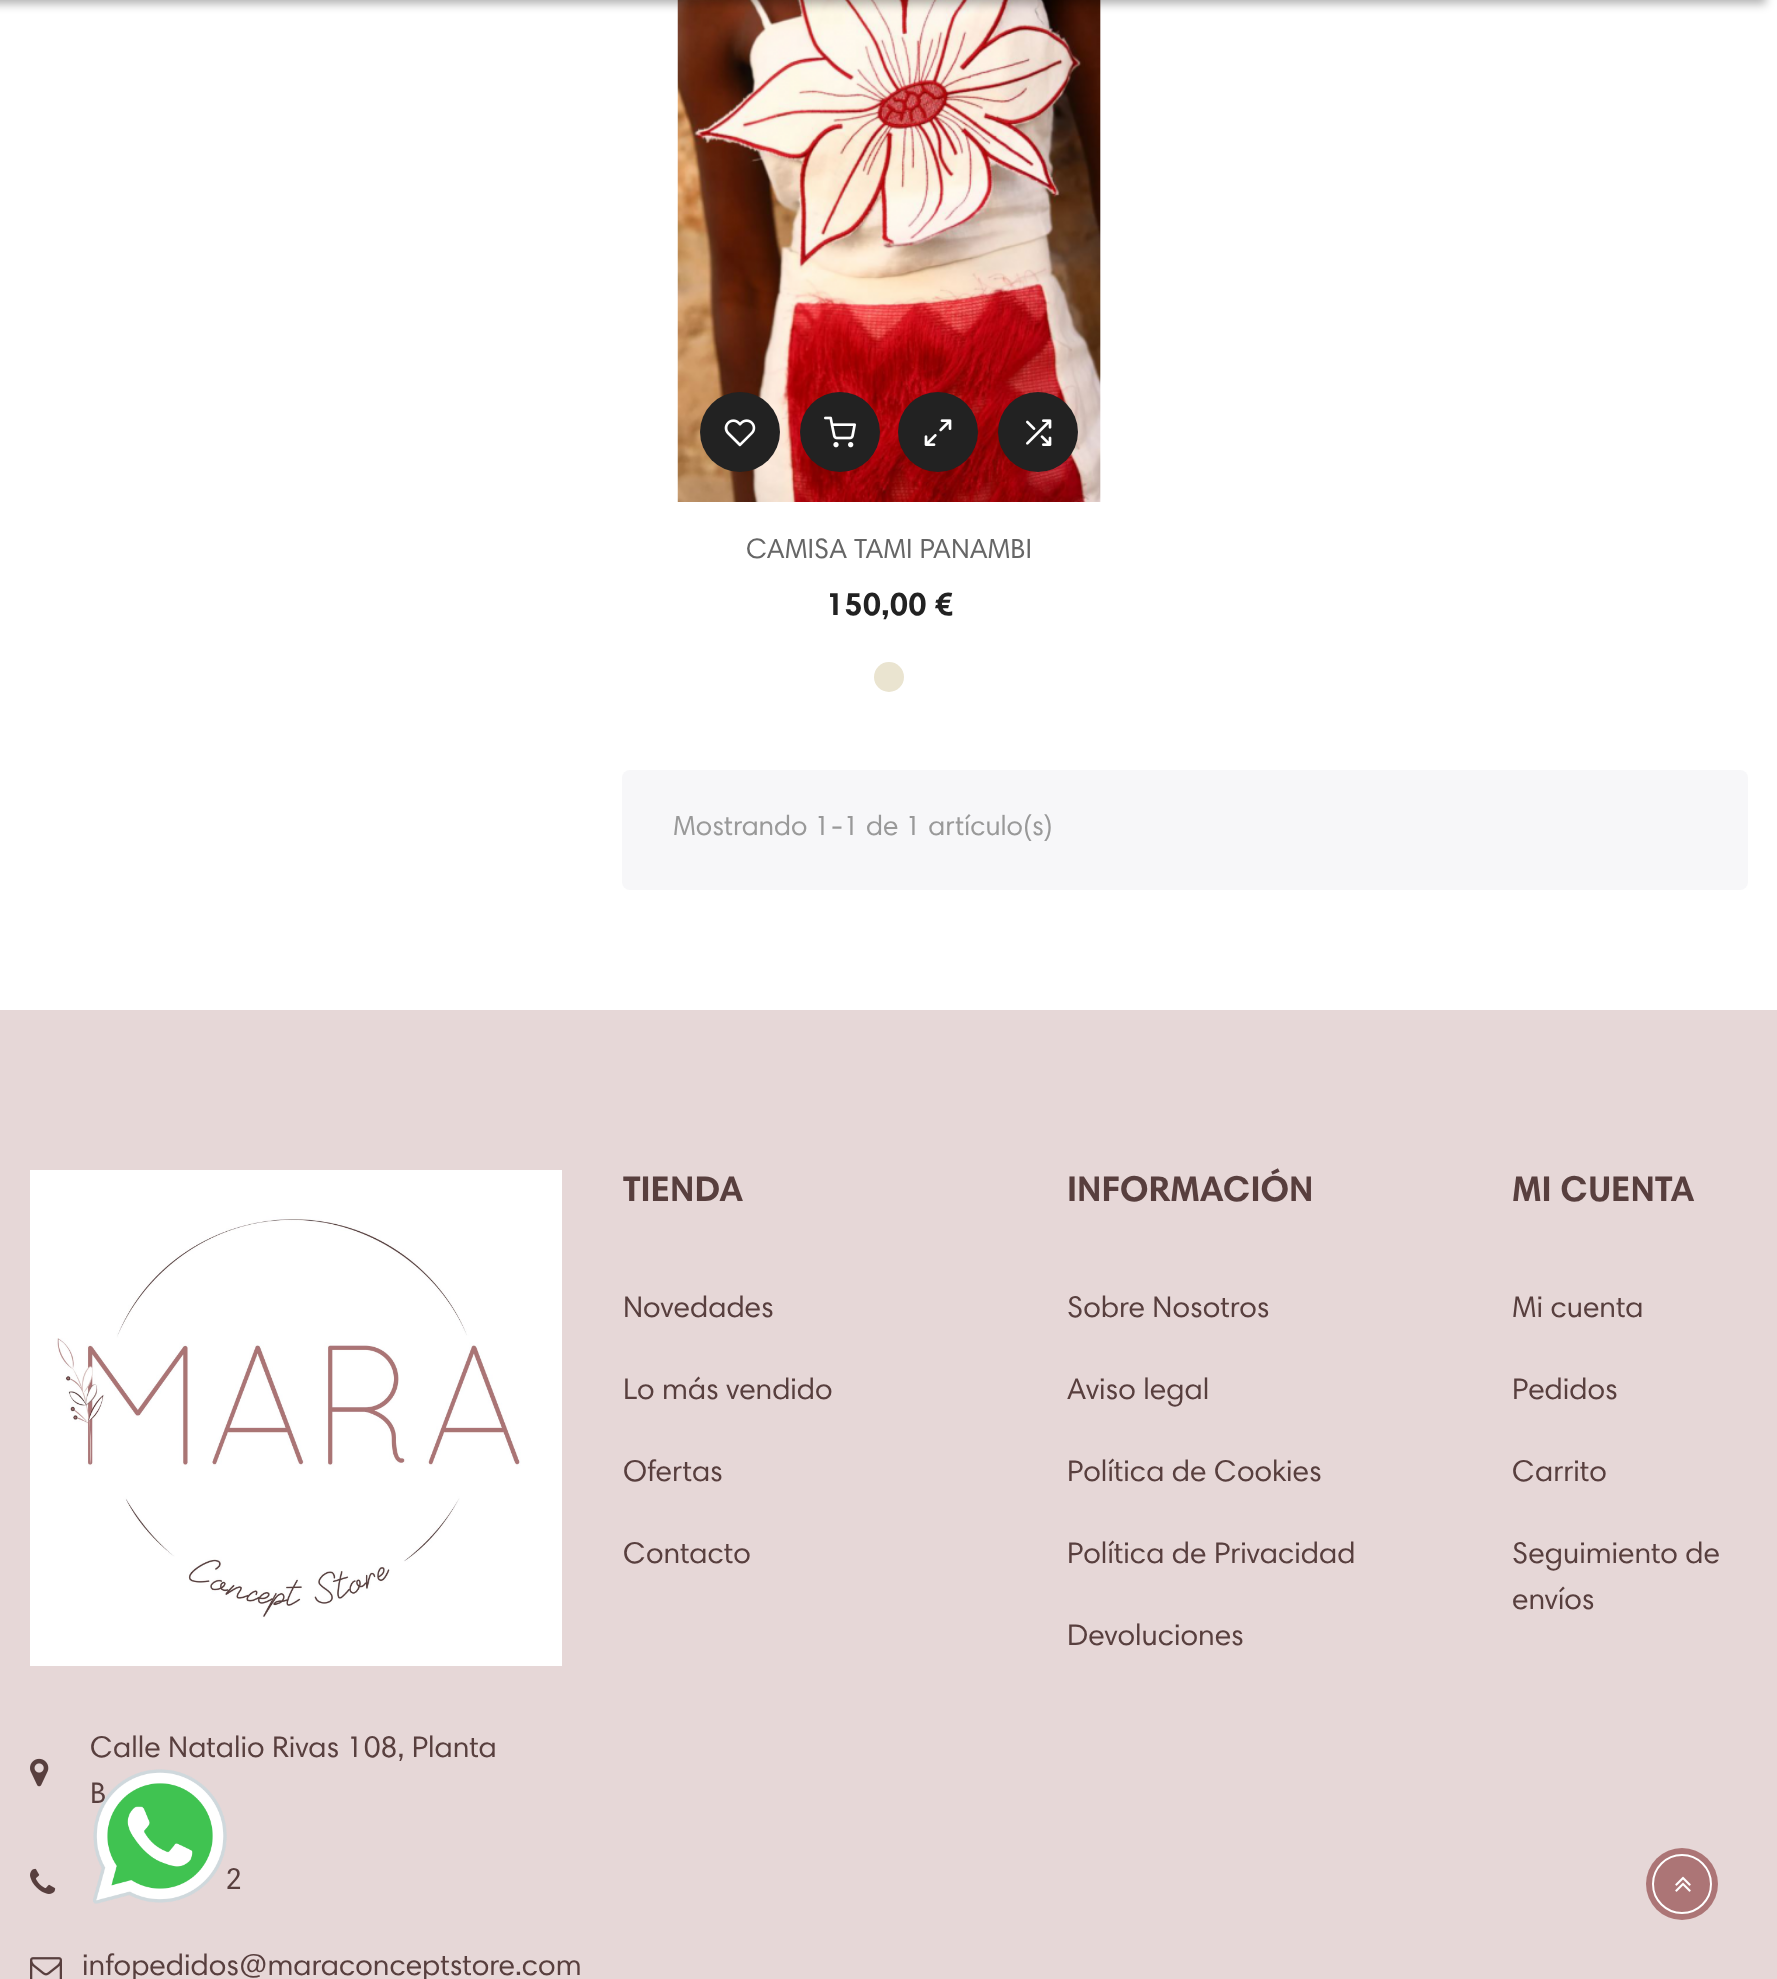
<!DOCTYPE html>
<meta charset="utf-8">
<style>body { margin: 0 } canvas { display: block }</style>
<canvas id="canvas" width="1777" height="1979"></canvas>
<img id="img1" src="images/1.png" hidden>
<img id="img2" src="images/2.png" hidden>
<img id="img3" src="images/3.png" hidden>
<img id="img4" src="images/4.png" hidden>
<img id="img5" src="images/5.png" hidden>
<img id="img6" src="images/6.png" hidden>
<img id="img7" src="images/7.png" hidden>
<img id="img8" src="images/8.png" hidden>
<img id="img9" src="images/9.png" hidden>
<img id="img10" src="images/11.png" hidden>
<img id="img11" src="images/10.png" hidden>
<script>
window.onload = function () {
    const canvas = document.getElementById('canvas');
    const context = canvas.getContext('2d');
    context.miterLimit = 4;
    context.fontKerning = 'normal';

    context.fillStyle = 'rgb(255, 255, 255)';
    context.fillRect(0, 0, 1777, 1979);
    context.drawImage(document.getElementById('img1'), 677, 0, 424, 502);
    context.fillStyle = 'rgba(0, 0, 0, 0.3)';
    context.filter = 'blur(5px)';
    context.beginPath();
    context.rect(-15, -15, 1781, 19);
    context.fill();
    context.filter = 'none';
    context.fillStyle = 'rgb(34, 34, 34)';
    context.beginPath();
    context.arc(740, 432, 40, 0, 2 * Math.PI);
    context.fill();
    context.drawImage(document.getElementById('img2'), 724, 419, 32, 28);
    context.beginPath();
    context.arc(840, 432, 40, 0, 2 * Math.PI);
    context.fill();
    context.drawImage(document.getElementById('img3'), 824, 416, 32, 32);
    context.beginPath();
    context.arc(938, 432, 40, 0, 2 * Math.PI);
    context.fill();
    context.drawImage(document.getElementById('img4'), 924, 419, 28, 27);
    context.beginPath();
    context.arc(1038, 432, 40, 0, 2 * Math.PI);
    context.fill();
    context.drawImage(document.getElementById('img5'), 1026, 419, 26, 27);
    context.fillStyle = 'rgb(234, 228, 208)';
    context.beginPath();
    context.arc(889, 677, 15, 0, 2 * Math.PI);
    context.fill();
    context.fillStyle = 'rgb(247, 247, 249)';
    context.beginPath();
    context.roundRect(622, 770, 1126, 120, 8);
    context.fill();
    context.fillStyle = 'rgb(230, 215, 215)';
    context.fillRect(0, 1010, 1777, 969);
    context.drawImage(document.getElementById('img6'), 30, 1170, 532, 496);
    context.drawImage(document.getElementById('img7'), 30, 1758, 19, 29);
    context.drawImage(document.getElementById('img8'), 30, 1868, 26, 26);
    context.drawImage(document.getElementById('img9'), 30, 1957, 32, 22);
    context.fillStyle = 'rgb(172, 117, 118)';
    context.beginPath();
    context.arc(1682, 1884, 36, 0, 2 * Math.PI);
    context.fill();
    context.beginPath();
    context.arc(1682, 1884, 29, 0, 2 * Math.PI);
    context.strokeStyle = 'rgb(255, 255, 255)';
    context.lineWidth = 2;
    context.stroke();
    context.drawImage(document.getElementById('img10'), 1675, 1876, 16, 16);
    context.font = '28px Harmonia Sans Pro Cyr';
    context.fillStyle = 'rgb(102, 102, 102)';
    context.fillText('CAMISA TAMI PANAMBI', 746, 558);
    context.font = 'bold 32px Harmonia Sans Pro Cyr';
    context.fillStyle = 'rgb(34, 34, 34)';
    context.fillText('150,00 €', 826, 615);
    context.font = '28px Harmonia Sans Pro Cyr';
    context.fillStyle = 'rgb(153, 153, 153)';
    context.fillText('Mostrando 1-1 de 1 artículo(s)', 673, 835);
    context.font = 'bold 36px Harmonia Sans Pro Cyr';
    context.fillStyle = 'rgb(88, 63, 62)';
    context.fillText('TIENDA', 623, 1201);
    context.font = '30px Harmonia Sans Pro Cyr';
    context.fillText('Novedades', 623, 1317);
    context.fillText('Lo más vendido', 623, 1399);
    context.fillText('Ofertas', 623, 1481);
    context.fillText('Contacto', 623, 1563);
    context.font = 'bold 36px Harmonia Sans Pro Cyr';
    context.fillText('INFORMACIÓN', 1067, 1201);
    context.font = '30px Harmonia Sans Pro Cyr';
    context.fillText('Sobre Nosotros', 1067, 1317);
    context.fillText('Aviso legal', 1067, 1399);
    context.fillText('Política de Cookies', 1067, 1481);
    context.fillText('Política de Privacidad', 1067, 1563);
    context.fillText('Devoluciones', 1067, 1645);
    context.font = 'bold 36px Harmonia Sans Pro Cyr';
    context.fillText('MI CUENTA', 1512, 1201);
    context.font = '30px Harmonia Sans Pro Cyr';
    context.fillText('Mi cuenta', 1512, 1317);
    context.fillText('Pedidos', 1512, 1399);
    context.fillText('Carrito', 1512, 1481);
    context.fillText('Seguimiento de', 1512, 1563);
    context.fillText('envíos', 1512, 1609);
    context.fillText('Calle Natalio Rivas 108, Planta', 90, 1757);
    context.fillText('B', 90, 1803);
    context.fillText('2', 225, 1889);
    context.fillText('infopedidos@maraconceptstore.com', 82, 1975);
    context.drawImage(document.getElementById('img11'), 93, 1769, 134, 135);
};
</script>
